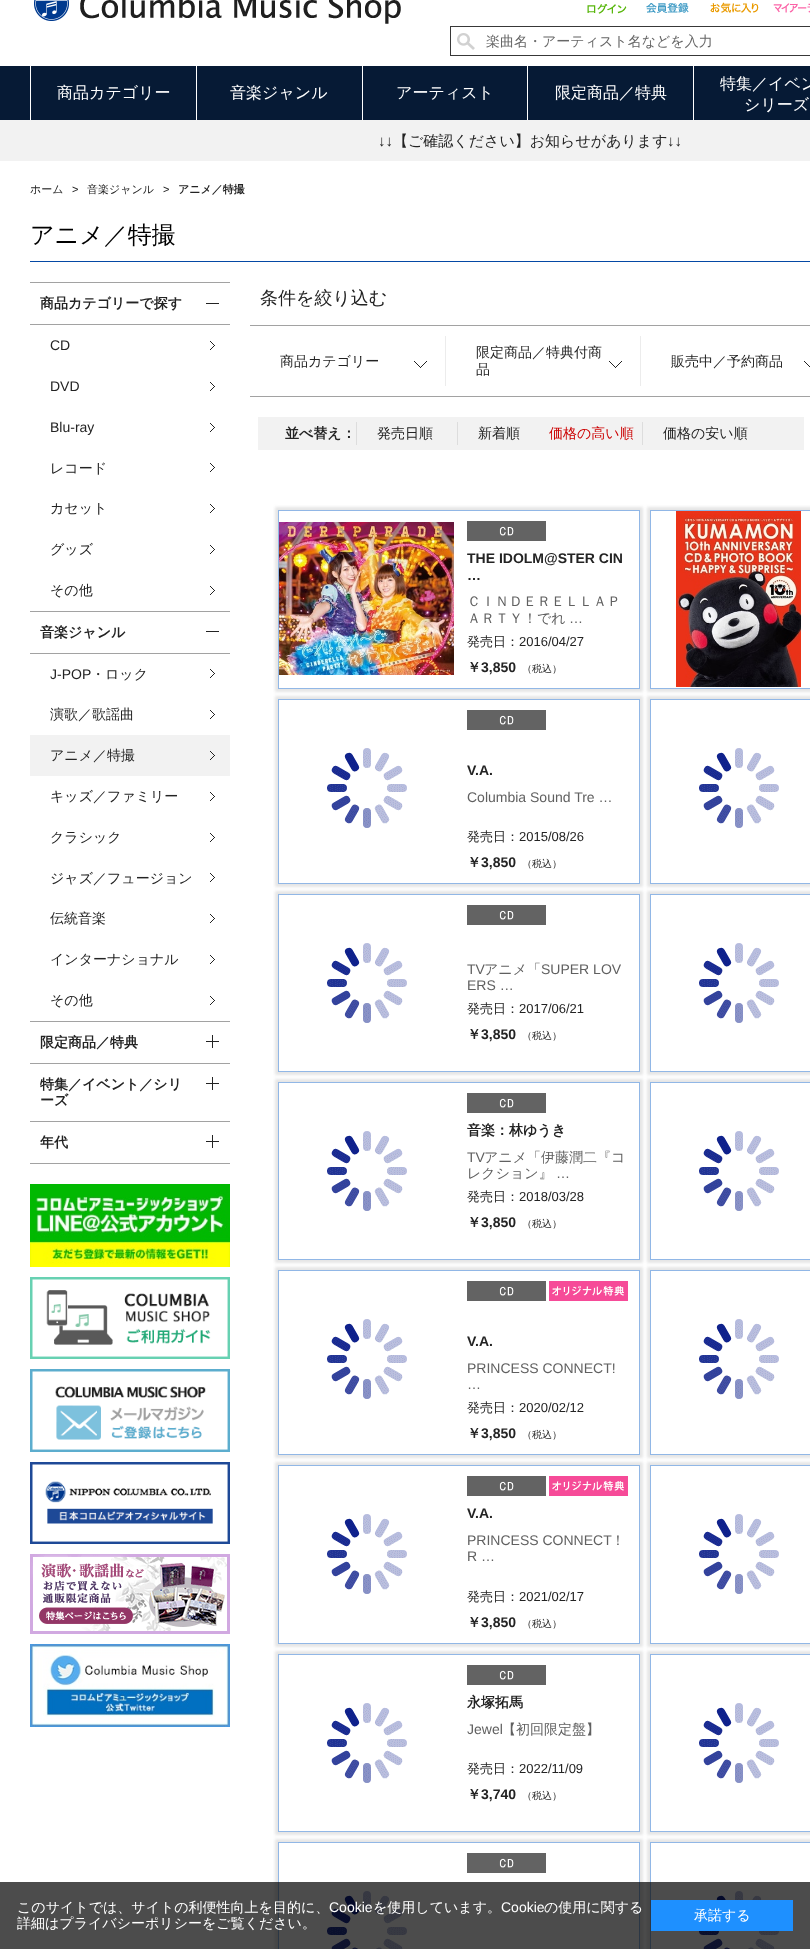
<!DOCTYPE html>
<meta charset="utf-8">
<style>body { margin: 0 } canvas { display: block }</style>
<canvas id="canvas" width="810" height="1949"></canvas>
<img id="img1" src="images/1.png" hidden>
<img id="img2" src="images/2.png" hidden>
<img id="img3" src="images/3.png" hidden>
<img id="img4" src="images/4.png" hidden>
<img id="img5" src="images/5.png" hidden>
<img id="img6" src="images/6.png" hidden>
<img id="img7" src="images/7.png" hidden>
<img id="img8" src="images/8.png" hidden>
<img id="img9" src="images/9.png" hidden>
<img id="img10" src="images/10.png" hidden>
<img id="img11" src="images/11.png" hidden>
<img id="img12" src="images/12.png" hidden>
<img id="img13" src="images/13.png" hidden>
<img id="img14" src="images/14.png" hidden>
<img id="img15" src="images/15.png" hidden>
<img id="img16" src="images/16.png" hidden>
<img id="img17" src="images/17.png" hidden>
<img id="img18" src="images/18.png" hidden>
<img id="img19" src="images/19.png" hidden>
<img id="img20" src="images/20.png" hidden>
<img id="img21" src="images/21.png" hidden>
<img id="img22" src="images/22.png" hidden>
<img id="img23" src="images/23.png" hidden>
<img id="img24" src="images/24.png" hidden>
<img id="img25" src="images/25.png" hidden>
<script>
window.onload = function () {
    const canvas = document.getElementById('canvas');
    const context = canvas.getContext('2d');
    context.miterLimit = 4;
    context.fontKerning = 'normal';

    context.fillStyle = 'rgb(255, 255, 255)';
    context.fillRect(0, 0, 810, 1949);
    context.drawImage(document.getElementById('img1'), 34, 0, 367, 24);
    context.drawImage(document.getElementById('img2'), 587, 4, 40, 10);
    context.drawImage(document.getElementById('img3'), 646, 3, 43, 10);
    context.drawImage(document.getElementById('img4'), 710, 2, 49, 11);
    context.drawImage(document.getElementById('img5'), 773, 3, 37, 10);
    context.drawImage(document.getElementById('img6'), 457, 33, 18, 17);
    context.strokeStyle = 'rgb(56, 56, 56)';
    context.strokeRect(450.5, 26.5, 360, 29);
    context.fillStyle = 'rgb(6, 26, 53)';
    context.fillRect(0, 66, 810, 54);
    context.fillStyle = 'rgb(255, 255, 255)';
    context.fillRect(30, 66, 1, 54);
    context.fillRect(196, 66, 1, 54);
    context.fillRect(362, 66, 1, 54);
    context.fillRect(527, 66, 1, 54);
    context.fillRect(693, 66, 1, 54);
    context.fillStyle = 'rgb(242, 242, 242)';
    context.fillRect(0, 120, 810, 41);
    context.fillStyle = 'rgb(4, 73, 165)';
    context.fillRect(30, 261, 780, 1);
    context.fillStyle = 'rgb(35, 35, 35)';
    context.fillRect(206, 303, 13, 1);
    context.fillStyle = 'rgb(162, 162, 162)';
    context.fillRect(30, 282, 200, 1);
    context.fillRect(30, 324, 200, 1);
    context.drawImage(document.getElementById('img7'), 210, 341, 5, 9);
    context.drawImage(document.getElementById('img7'), 210, 382, 5, 9);
    context.drawImage(document.getElementById('img7'), 210, 423, 5, 9);
    context.drawImage(document.getElementById('img7'), 210, 463, 5, 9);
    context.drawImage(document.getElementById('img7'), 210, 504, 5, 9);
    context.drawImage(document.getElementById('img7'), 210, 545, 5, 9);
    context.drawImage(document.getElementById('img7'), 210, 586, 5, 9);
    context.fillRect(30, 1163, 200, 1);
    context.fillRect(30, 611, 200, 1);
    context.fillStyle = 'rgb(35, 35, 35)';
    context.fillRect(206, 631, 13, 1);
    context.fillStyle = 'rgb(162, 162, 162)';
    context.fillRect(30, 653, 200, 1);
    context.drawImage(document.getElementById('img7'), 210, 669, 5, 9);
    context.drawImage(document.getElementById('img7'), 210, 710, 5, 9);
    context.fillStyle = 'rgb(242, 242, 242)';
    context.fillRect(30, 735, 200, 41);
    context.drawImage(document.getElementById('img8'), 210, 751, 5, 9);
    context.drawImage(document.getElementById('img7'), 210, 792, 5, 9);
    context.drawImage(document.getElementById('img7'), 210, 833, 5, 9);
    context.drawImage(document.getElementById('img7'), 210, 873, 5, 9);
    context.drawImage(document.getElementById('img7'), 210, 914, 5, 9);
    context.drawImage(document.getElementById('img7'), 210, 955, 5, 9);
    context.drawImage(document.getElementById('img7'), 210, 996, 5, 9);
    context.fillStyle = 'rgb(162, 162, 162)';
    context.fillRect(30, 1021, 200, 1);
    context.drawImage(document.getElementById('img9'), 206, 1035, 13, 13);
    context.fillRect(30, 1063, 200, 1);
    context.drawImage(document.getElementById('img9'), 206, 1077, 13, 13);
    context.fillRect(30, 1121, 200, 1);
    context.drawImage(document.getElementById('img9'), 206, 1135, 13, 13);
    context.drawImage(document.getElementById('img10'), 30, 1184, 200, 83);
    context.drawImage(document.getElementById('img11'), 30, 1277, 200, 82);
    context.drawImage(document.getElementById('img12'), 30, 1369, 200, 83);
    context.drawImage(document.getElementById('img13'), 30, 1462, 200, 82);
    context.drawImage(document.getElementById('img14'), 30, 1554, 200, 80);
    context.drawImage(document.getElementById('img15'), 30, 1644, 200, 83);
    context.fillRect(250, 325, 560, 1);
    context.fillRect(250, 396, 560, 1);
    context.drawImage(document.getElementById('img16'), 414, 361, 13, 7);
    context.drawImage(document.getElementById('img16'), 609, 361, 13, 7);
    context.fillStyle = 'rgb(236, 236, 236)';
    context.fillRect(445, 336, 1, 50);
    context.drawImage(document.getElementById('img17'), 804, 361, 6, 6);
    context.fillRect(640, 336, 1, 50);
    context.fillStyle = 'rgb(242, 242, 242)';
    context.fillRect(258, 417, 546, 33);
    context.fillStyle = 'rgb(221, 221, 221)';
    context.fillRect(356, 422, 1, 23);
    context.fillRect(457, 422, 1, 23);
    context.fillRect(642, 422, 1, 23);
    context.save();
    context.beginPath();
    context.moveTo(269, 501);
    context.lineTo(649, 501);
    context.lineTo(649, 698);
    context.lineTo(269, 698);
    context.closePath();
    context.moveTo(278, 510);
    context.lineTo(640, 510);
    context.lineTo(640, 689);
    context.lineTo(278, 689);
    context.closePath();
    context.clip('evenodd');
    context.fillStyle = 'rgb(229, 229, 229)';
    context.filter = 'blur(1.5px)';
    context.beginPath();
    context.rect(275, 507, 368, 185);
    context.fill();
    context.filter = 'none';
    context.restore();
    context.strokeStyle = 'rgb(145, 183, 230)';
    context.strokeRect(278.5, 510.5, 361, 178);
    context.drawImage(document.getElementById('img18'), 279, 522, 175, 153);
    context.drawImage(document.getElementById('img19'), 467, 521, 79, 20);
    context.save();
    context.beginPath();
    context.moveTo(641, 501);
    context.lineTo(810, 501);
    context.lineTo(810, 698);
    context.lineTo(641, 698);
    context.closePath();
    context.moveTo(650, 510);
    context.lineTo(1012, 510);
    context.lineTo(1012, 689);
    context.lineTo(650, 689);
    context.closePath();
    context.clip('evenodd');
    context.fillStyle = 'rgb(229, 229, 229)';
    context.filter = 'blur(1.5px)';
    context.beginPath();
    context.rect(647, 507, 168, 185);
    context.fill();
    context.filter = 'none';
    context.restore();
    context.strokeRect(650.5, 510.5, 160, 178);
    context.drawImage(document.getElementById('img20'), 676, 511, 125, 176);
    context.save();
    context.beginPath();
    context.moveTo(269, 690);
    context.lineTo(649, 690);
    context.lineTo(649, 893);
    context.lineTo(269, 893);
    context.closePath();
    context.moveTo(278, 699);
    context.lineTo(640, 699);
    context.lineTo(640, 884);
    context.lineTo(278, 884);
    context.closePath();
    context.clip('evenodd');
    context.fillStyle = 'rgb(229, 229, 229)';
    context.filter = 'blur(1.5px)';
    context.beginPath();
    context.rect(275, 696, 368, 191);
    context.fill();
    context.filter = 'none';
    context.restore();
    context.strokeRect(278.5, 699.5, 361, 184);
    context.drawImage(document.getElementById('img21'), 327, 748, 80, 80);
    context.drawImage(document.getElementById('img22'), 467, 710, 79, 20);
    context.save();
    context.beginPath();
    context.moveTo(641, 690);
    context.lineTo(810, 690);
    context.lineTo(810, 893);
    context.lineTo(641, 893);
    context.closePath();
    context.moveTo(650, 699);
    context.lineTo(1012, 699);
    context.lineTo(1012, 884);
    context.lineTo(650, 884);
    context.closePath();
    context.clip('evenodd');
    context.fillStyle = 'rgb(229, 229, 229)';
    context.filter = 'blur(1.5px)';
    context.beginPath();
    context.rect(647, 696, 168, 191);
    context.fill();
    context.filter = 'none';
    context.restore();
    context.strokeRect(650.5, 699.5, 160, 184);
    context.drawImage(document.getElementById('img21'), 699, 748, 80, 80);
    context.save();
    context.beginPath();
    context.moveTo(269, 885);
    context.lineTo(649, 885);
    context.lineTo(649, 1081);
    context.lineTo(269, 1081);
    context.closePath();
    context.moveTo(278, 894);
    context.lineTo(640, 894);
    context.lineTo(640, 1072);
    context.lineTo(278, 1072);
    context.closePath();
    context.clip('evenodd');
    context.fillStyle = 'rgb(229, 229, 229)';
    context.filter = 'blur(1.5px)';
    context.beginPath();
    context.rect(275, 891, 368, 184);
    context.fill();
    context.filter = 'none';
    context.restore();
    context.strokeRect(278.5, 894.5, 361, 177);
    context.drawImage(document.getElementById('img21'), 327, 943, 80, 80);
    context.drawImage(document.getElementById('img19'), 467, 905, 79, 20);
    context.save();
    context.beginPath();
    context.moveTo(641, 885);
    context.lineTo(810, 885);
    context.lineTo(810, 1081);
    context.lineTo(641, 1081);
    context.closePath();
    context.moveTo(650, 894);
    context.lineTo(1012, 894);
    context.lineTo(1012, 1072);
    context.lineTo(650, 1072);
    context.closePath();
    context.clip('evenodd');
    context.fillStyle = 'rgb(229, 229, 229)';
    context.filter = 'blur(1.5px)';
    context.beginPath();
    context.rect(647, 891, 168, 184);
    context.fill();
    context.filter = 'none';
    context.restore();
    context.strokeRect(650.5, 894.5, 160, 177);
    context.drawImage(document.getElementById('img21'), 699, 943, 80, 80);
    context.save();
    context.beginPath();
    context.moveTo(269, 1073);
    context.lineTo(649, 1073);
    context.lineTo(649, 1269);
    context.lineTo(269, 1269);
    context.closePath();
    context.moveTo(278, 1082);
    context.lineTo(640, 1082);
    context.lineTo(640, 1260);
    context.lineTo(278, 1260);
    context.closePath();
    context.clip('evenodd');
    context.fillStyle = 'rgb(229, 229, 229)';
    context.filter = 'blur(1.5px)';
    context.beginPath();
    context.rect(275, 1079, 368, 184);
    context.fill();
    context.filter = 'none';
    context.restore();
    context.strokeRect(278.5, 1082.5, 361, 177);
    context.drawImage(document.getElementById('img21'), 327, 1131, 80, 80);
    context.drawImage(document.getElementById('img19'), 467, 1093, 79, 20);
    context.save();
    context.beginPath();
    context.moveTo(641, 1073);
    context.lineTo(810, 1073);
    context.lineTo(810, 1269);
    context.lineTo(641, 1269);
    context.closePath();
    context.moveTo(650, 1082);
    context.lineTo(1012, 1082);
    context.lineTo(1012, 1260);
    context.lineTo(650, 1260);
    context.closePath();
    context.clip('evenodd');
    context.fillStyle = 'rgb(229, 229, 229)';
    context.filter = 'blur(1.5px)';
    context.beginPath();
    context.rect(647, 1079, 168, 184);
    context.fill();
    context.filter = 'none';
    context.restore();
    context.strokeRect(650.5, 1082.5, 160, 177);
    context.drawImage(document.getElementById('img21'), 699, 1131, 80, 80);
    context.save();
    context.beginPath();
    context.moveTo(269, 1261);
    context.lineTo(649, 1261);
    context.lineTo(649, 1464);
    context.lineTo(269, 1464);
    context.closePath();
    context.moveTo(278, 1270);
    context.lineTo(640, 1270);
    context.lineTo(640, 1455);
    context.lineTo(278, 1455);
    context.closePath();
    context.clip('evenodd');
    context.fillStyle = 'rgb(229, 229, 229)';
    context.filter = 'blur(1.5px)';
    context.beginPath();
    context.rect(275, 1267, 368, 191);
    context.fill();
    context.filter = 'none';
    context.restore();
    context.strokeRect(278.5, 1270.5, 361, 184);
    context.drawImage(document.getElementById('img21'), 327, 1319, 80, 80);
    context.drawImage(document.getElementById('img19'), 467, 1281, 79, 20);
    context.drawImage(document.getElementById('img23'), 549, 1281, 79, 20);
    context.save();
    context.beginPath();
    context.moveTo(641, 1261);
    context.lineTo(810, 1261);
    context.lineTo(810, 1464);
    context.lineTo(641, 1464);
    context.closePath();
    context.moveTo(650, 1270);
    context.lineTo(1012, 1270);
    context.lineTo(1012, 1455);
    context.lineTo(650, 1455);
    context.closePath();
    context.clip('evenodd');
    context.fillStyle = 'rgb(229, 229, 229)';
    context.filter = 'blur(1.5px)';
    context.beginPath();
    context.rect(647, 1267, 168, 191);
    context.fill();
    context.filter = 'none';
    context.restore();
    context.strokeRect(650.5, 1270.5, 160, 184);
    context.drawImage(document.getElementById('img21'), 699, 1319, 80, 80);
    context.save();
    context.beginPath();
    context.moveTo(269, 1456);
    context.lineTo(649, 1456);
    context.lineTo(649, 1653);
    context.lineTo(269, 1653);
    context.closePath();
    context.moveTo(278, 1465);
    context.lineTo(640, 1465);
    context.lineTo(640, 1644);
    context.lineTo(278, 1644);
    context.closePath();
    context.clip('evenodd');
    context.fillStyle = 'rgb(229, 229, 229)';
    context.filter = 'blur(1.5px)';
    context.beginPath();
    context.rect(275, 1462, 368, 185);
    context.fill();
    context.filter = 'none';
    context.restore();
    context.strokeRect(278.5, 1465.5, 361, 178);
    context.drawImage(document.getElementById('img21'), 327, 1514, 80, 80);
    context.drawImage(document.getElementById('img19'), 467, 1476, 79, 20);
    context.drawImage(document.getElementById('img23'), 549, 1476, 79, 20);
    context.save();
    context.beginPath();
    context.moveTo(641, 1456);
    context.lineTo(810, 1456);
    context.lineTo(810, 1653);
    context.lineTo(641, 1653);
    context.closePath();
    context.moveTo(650, 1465);
    context.lineTo(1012, 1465);
    context.lineTo(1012, 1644);
    context.lineTo(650, 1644);
    context.closePath();
    context.clip('evenodd');
    context.fillStyle = 'rgb(229, 229, 229)';
    context.filter = 'blur(1.5px)';
    context.beginPath();
    context.rect(647, 1462, 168, 185);
    context.fill();
    context.filter = 'none';
    context.restore();
    context.strokeRect(650.5, 1465.5, 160, 178);
    context.drawImage(document.getElementById('img21'), 699, 1514, 80, 80);
    context.save();
    context.beginPath();
    context.moveTo(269, 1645);
    context.lineTo(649, 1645);
    context.lineTo(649, 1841);
    context.lineTo(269, 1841);
    context.closePath();
    context.moveTo(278, 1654);
    context.lineTo(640, 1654);
    context.lineTo(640, 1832);
    context.lineTo(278, 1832);
    context.closePath();
    context.clip('evenodd');
    context.fillStyle = 'rgb(229, 229, 229)';
    context.filter = 'blur(1.5px)';
    context.beginPath();
    context.rect(275, 1651, 368, 184);
    context.fill();
    context.filter = 'none';
    context.restore();
    context.strokeRect(278.5, 1654.5, 361, 177);
    context.drawImage(document.getElementById('img21'), 327, 1703, 80, 80);
    context.drawImage(document.getElementById('img24'), 467, 1665, 79, 20);
    context.save();
    context.beginPath();
    context.moveTo(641, 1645);
    context.lineTo(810, 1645);
    context.lineTo(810, 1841);
    context.lineTo(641, 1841);
    context.closePath();
    context.moveTo(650, 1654);
    context.lineTo(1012, 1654);
    context.lineTo(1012, 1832);
    context.lineTo(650, 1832);
    context.closePath();
    context.clip('evenodd');
    context.fillStyle = 'rgb(229, 229, 229)';
    context.filter = 'blur(1.5px)';
    context.beginPath();
    context.rect(647, 1651, 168, 184);
    context.fill();
    context.filter = 'none';
    context.restore();
    context.strokeRect(650.5, 1654.5, 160, 177);
    context.drawImage(document.getElementById('img21'), 699, 1703, 80, 80);
    context.save();
    context.beginPath();
    context.moveTo(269, 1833);
    context.lineTo(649, 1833);
    context.lineTo(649, 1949);
    context.lineTo(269, 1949);
    context.closePath();
    context.moveTo(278, 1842);
    context.lineTo(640, 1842);
    context.lineTo(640, 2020);
    context.lineTo(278, 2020);
    context.closePath();
    context.clip('evenodd');
    context.fillStyle = 'rgb(229, 229, 229)';
    context.filter = 'blur(1.5px)';
    context.beginPath();
    context.rect(275, 1839, 368, 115);
    context.fill();
    context.filter = 'none';
    context.restore();
    context.strokeRect(278.5, 1842.5, 361, 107);
    context.drawImage(document.getElementById('img19'), 467, 1853, 79, 20);
    context.drawImage(document.getElementById('img25'), 327, 1891, 80, 58);
    context.save();
    context.beginPath();
    context.moveTo(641, 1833);
    context.lineTo(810, 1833);
    context.lineTo(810, 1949);
    context.lineTo(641, 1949);
    context.closePath();
    context.moveTo(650, 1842);
    context.lineTo(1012, 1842);
    context.lineTo(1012, 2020);
    context.lineTo(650, 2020);
    context.closePath();
    context.clip('evenodd');
    context.fillStyle = 'rgb(229, 229, 229)';
    context.filter = 'blur(1.5px)';
    context.beginPath();
    context.rect(647, 1839, 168, 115);
    context.fill();
    context.filter = 'none';
    context.restore();
    context.strokeRect(650.5, 1842.5, 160, 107);
    context.drawImage(document.getElementById('img25'), 699, 1891, 80, 58);
    context.fillStyle = 'rgba(0, 0, 0, 0.7)';
    context.fillRect(0, 1882, 810, 67);
    context.fillStyle = 'rgb(30, 144, 255)';
    context.fillRect(651, 1900, 142, 31);
    context.font = '500 14px WenQuanYi Zen Hei';
    context.fillStyle = 'rgb(102, 102, 102)';
    context.fillText('楽曲名・アーティスト名などを入力', 486, 46);
    context.font = '500 16px WenQuanYi Zen Hei';
    context.fillStyle = 'rgb(255, 255, 255)';
    context.fillText('商品カテゴリー', 57, 98);
    context.fillText('音楽ジャンル', 230, 98);
    context.fillText('アーティスト', 396, 98);
    context.fillText('限定商品／特典', 555, 98);
    context.fillText('特集／イベン', 720, 89);
    context.fillText('シリーズ', 744, 110);
    context.font = '15px Liberation Sans';
    context.fillStyle = 'rgb(35, 35, 35)';
    context.fillText('↓↓', 378, 146);
    context.font = '500 15px WenQuanYi Zen Hei';
    context.fillText('【ご確認ください】お知らせがあります', 393, 146);
    context.font = '15px Liberation Sans';
    context.fillText('↓↓', 667, 146);
    context.font = '500 11px WenQuanYi Zen Hei';
    context.fillText('ホーム', 30, 193);
    context.font = '11px Liberation Sans';
    context.fillText('>', 72, 193);
    context.font = '500 11px WenQuanYi Zen Hei';
    context.fillText('音楽ジャンル', 87, 193);
    context.font = '11px Liberation Sans';
    context.fillText('>', 163, 193);
    context.font = 'bold 11px WenQuanYi Zen Hei';
    context.fillText('アニメ／特撮', 178, 193);
    context.font = '500 24px WenQuanYi Zen Hei';
    context.fillStyle = 'rgb(0, 0, 0)';
    context.fillText('アニメ／特撮', 30, 243);
    context.font = 'bold 14px WenQuanYi Zen Hei';
    context.fillStyle = 'rgb(35, 35, 35)';
    context.fillText('商品カテゴリーで探す', 40, 308);
    context.font = '14px Liberation Sans';
    context.fillText('CD', 50, 350);
    context.fillText('DVD', 50, 391);
    context.fillText('Blu-ray', 50, 432);
    context.font = '500 14px WenQuanYi Zen Hei';
    context.fillText('レコード', 50, 473);
    context.fillText('カセット', 50, 513);
    context.fillText('グッズ', 50, 554);
    context.fillText('その他', 50, 595);
    context.font = 'bold 14px WenQuanYi Zen Hei';
    context.fillText('音楽ジャンル', 40, 637);
    context.font = '14px Liberation Sans';
    context.fillText('J-POP', 50, 679);
    context.font = '500 14px WenQuanYi Zen Hei';
    context.fillText('・ロック', 91, 679);
    context.fillText('演歌／歌謡曲', 50, 719);
    context.fillText('アニメ／特撮', 50, 760);
    context.fillText('キッズ／ファミリー', 50, 801);
    context.fillText('クラシック', 50, 842);
    context.fillText('ジャズ／フュージョン', 50, 883);
    context.fillText('伝統音楽', 50, 923);
    context.fillText('インターナショナル', 50, 964);
    context.fillText('その他', 50, 1005);
    context.font = 'bold 14px WenQuanYi Zen Hei';
    context.fillText('限定商品／特典', 40, 1047);
    context.fillText('特集／イベント／シリ', 40, 1089);
    context.fillText('ーズ', 40, 1105);
    context.fillText('年代', 40, 1147);
    context.font = '500 18px WenQuanYi Zen Hei';
    context.fillText('条件を絞り込む', 260, 304);
    context.font = '500 14px WenQuanYi Zen Hei';
    context.fillText('商品カテゴリー', 280, 366);
    context.fillText('限定商品／特典付商', 476, 357);
    context.fillText('品', 476, 374);
    context.fillText('販売中／予約商品', 671, 366);
    context.font = 'bold 14px WenQuanYi Zen Hei';
    context.fillText('並べ替え：', 285, 438);
    context.font = '500 14px WenQuanYi Zen Hei';
    context.fillText('発売日順', 377, 438);
    context.fillText('新着順', 478, 438);
    context.fillStyle = 'rgb(204, 0, 0)';
    context.fillText('価格の高い順', 549, 438);
    context.fillStyle = 'rgb(35, 35, 35)';
    context.fillText('価格の安い順', 663, 438);
    context.font = 'bold 14px Liberation Sans';
    context.fillText('THE IDOLM@STER CIN', 467, 563);
    context.fillText('…', 467, 580);
    context.font = '500 14px WenQuanYi Zen Hei';
    context.fillStyle = 'rgb(96, 96, 96)';
    context.fillText('ＣＩＮＤＥＲＥＬＬＡＰ', 467, 606);
    context.fillText('ＡＲＴＹ！でれ', 467, 623);
    context.font = '14px Liberation Sans';
    context.fillText('…', 569, 623);
    context.font = '500 13px WenQuanYi Zen Hei';
    context.fillStyle = 'rgb(35, 35, 35)';
    context.fillText('発売日：', 467, 646);
    context.font = '13px Liberation Sans';
    context.fillText('2016/04/27', 519, 646);
    context.font = 'bold 14px WenQuanYi Zen Hei';
    context.fillText('￥', 467, 672);
    context.font = 'bold 14px Liberation Sans';
    context.fillText('3,850', 481, 672);
    context.font = '500 10px WenQuanYi Zen Hei';
    context.fillText('（税込）', 522, 672);
    context.font = 'bold 14px Liberation Sans';
    context.fillText('V.A.', 467, 775);
    context.font = '14px Liberation Sans';
    context.fillStyle = 'rgb(96, 96, 96)';
    context.fillText('Columbia Sound Tre …', 467, 802);
    context.font = '500 13px WenQuanYi Zen Hei';
    context.fillStyle = 'rgb(35, 35, 35)';
    context.fillText('発売日：', 467, 841);
    context.font = '13px Liberation Sans';
    context.fillText('2015/08/26', 519, 841);
    context.font = 'bold 14px WenQuanYi Zen Hei';
    context.fillText('￥', 467, 867);
    context.font = 'bold 14px Liberation Sans';
    context.fillText('3,850', 481, 867);
    context.font = '500 10px WenQuanYi Zen Hei';
    context.fillText('（税込）', 522, 867);
    context.font = '14px Liberation Sans';
    context.fillStyle = 'rgb(96, 96, 96)';
    context.fillText('TV', 467, 974);
    context.font = '500 14px WenQuanYi Zen Hei';
    context.fillText('アニメ「', 484, 974);
    context.font = '14px Liberation Sans';
    context.fillText('SUPER LOV', 541, 974);
    context.fillText('ERS …', 467, 990);
    context.font = '500 13px WenQuanYi Zen Hei';
    context.fillStyle = 'rgb(35, 35, 35)';
    context.fillText('発売日：', 467, 1013);
    context.font = '13px Liberation Sans';
    context.fillText('2017/06/21', 519, 1013);
    context.font = 'bold 14px WenQuanYi Zen Hei';
    context.fillText('￥', 467, 1039);
    context.font = 'bold 14px Liberation Sans';
    context.fillText('3,850', 481, 1039);
    context.font = '500 10px WenQuanYi Zen Hei';
    context.fillText('（税込）', 522, 1039);
    context.font = 'bold 14px WenQuanYi Zen Hei';
    context.fillText('音楽：林ゆうき', 467, 1135);
    context.font = '14px Liberation Sans';
    context.fillStyle = 'rgb(96, 96, 96)';
    context.fillText('TV', 467, 1162);
    context.font = '500 14px WenQuanYi Zen Hei';
    context.fillText('アニメ「伊藤潤二『コ', 484, 1162);
    context.fillText('レクション』', 467, 1178);
    context.font = '14px Liberation Sans';
    context.fillText('…', 556, 1178);
    context.font = '500 13px WenQuanYi Zen Hei';
    context.fillStyle = 'rgb(35, 35, 35)';
    context.fillText('発売日：', 467, 1201);
    context.font = '13px Liberation Sans';
    context.fillText('2018/03/28', 519, 1201);
    context.font = 'bold 14px WenQuanYi Zen Hei';
    context.fillText('￥', 467, 1227);
    context.font = 'bold 14px Liberation Sans';
    context.fillText('3,850', 481, 1227);
    context.font = '500 10px WenQuanYi Zen Hei';
    context.fillText('（税込）', 522, 1227);
    context.font = 'bold 14px Liberation Sans';
    context.fillText('V.A.', 467, 1346);
    context.font = '14px Liberation Sans';
    context.fillStyle = 'rgb(96, 96, 96)';
    context.fillText('PRINCESS CONNECT!', 467, 1373);
    context.fillText('…', 467, 1389);
    context.font = '500 13px WenQuanYi Zen Hei';
    context.fillStyle = 'rgb(35, 35, 35)';
    context.fillText('発売日：', 467, 1412);
    context.font = '13px Liberation Sans';
    context.fillText('2020/02/12', 519, 1412);
    context.font = 'bold 14px WenQuanYi Zen Hei';
    context.fillText('￥', 467, 1438);
    context.font = 'bold 14px Liberation Sans';
    context.fillText('3,850', 481, 1438);
    context.font = '500 10px WenQuanYi Zen Hei';
    context.fillText('（税込）', 522, 1438);
    context.font = 'bold 14px Liberation Sans';
    context.fillText('V.A.', 467, 1518);
    context.font = '14px Liberation Sans';
    context.fillStyle = 'rgb(96, 96, 96)';
    context.fillText('PRINCESS CONNECT', 467, 1545);
    context.font = '500 14px WenQuanYi Zen Hei';
    context.fillText('！', 611, 1545);
    context.font = '14px Liberation Sans';
    context.fillText('R …', 467, 1561);
    context.font = '500 13px WenQuanYi Zen Hei';
    context.fillStyle = 'rgb(35, 35, 35)';
    context.fillText('発売日：', 467, 1601);
    context.font = '13px Liberation Sans';
    context.fillText('2021/02/17', 519, 1601);
    context.font = 'bold 14px WenQuanYi Zen Hei';
    context.fillText('￥', 467, 1627);
    context.font = 'bold 14px Liberation Sans';
    context.fillText('3,850', 481, 1627);
    context.font = '500 10px WenQuanYi Zen Hei';
    context.fillText('（税込）', 522, 1627);
    context.font = 'bold 14px WenQuanYi Zen Hei';
    context.fillText('永塚拓馬', 467, 1707);
    context.font = '14px Liberation Sans';
    context.fillStyle = 'rgb(96, 96, 96)';
    context.fillText('Jewel', 467, 1734);
    context.font = '500 14px WenQuanYi Zen Hei';
    context.fillText('【初回限定盤】', 502, 1734);
    context.font = '500 13px WenQuanYi Zen Hei';
    context.fillStyle = 'rgb(35, 35, 35)';
    context.fillText('発売日：', 467, 1773);
    context.font = '13px Liberation Sans';
    context.fillText('2022/11/09', 519, 1773);
    context.font = 'bold 14px WenQuanYi Zen Hei';
    context.fillText('￥', 467, 1799);
    context.font = 'bold 14px Liberation Sans';
    context.fillText('3,740', 481, 1799);
    context.font = '500 10px WenQuanYi Zen Hei';
    context.fillText('（税込）', 522, 1799);
    context.font = '500 14px WenQuanYi Zen Hei';
    context.fillStyle = 'rgb(255, 255, 255)';
    context.fillText('このサイトでは、サイトの利便性向上を目的に、', 17, 1912);
    context.font = '14px Liberation Sans';
    context.fillText('Cookie', 329, 1912);
    context.font = '500 14px WenQuanYi Zen Hei';
    context.fillText('を使用しています。', 373, 1912);
    context.font = '14px Liberation Sans';
    context.fillText('Cookie', 501, 1912);
    context.font = '500 14px WenQuanYi Zen Hei';
    context.fillText('の使用に関する', 544, 1912);
    context.fillText('詳細はプライバシーポリシーをご覧ください。', 17, 1928);
    context.fillText('承諾する', 694, 1920);
};
</script>
